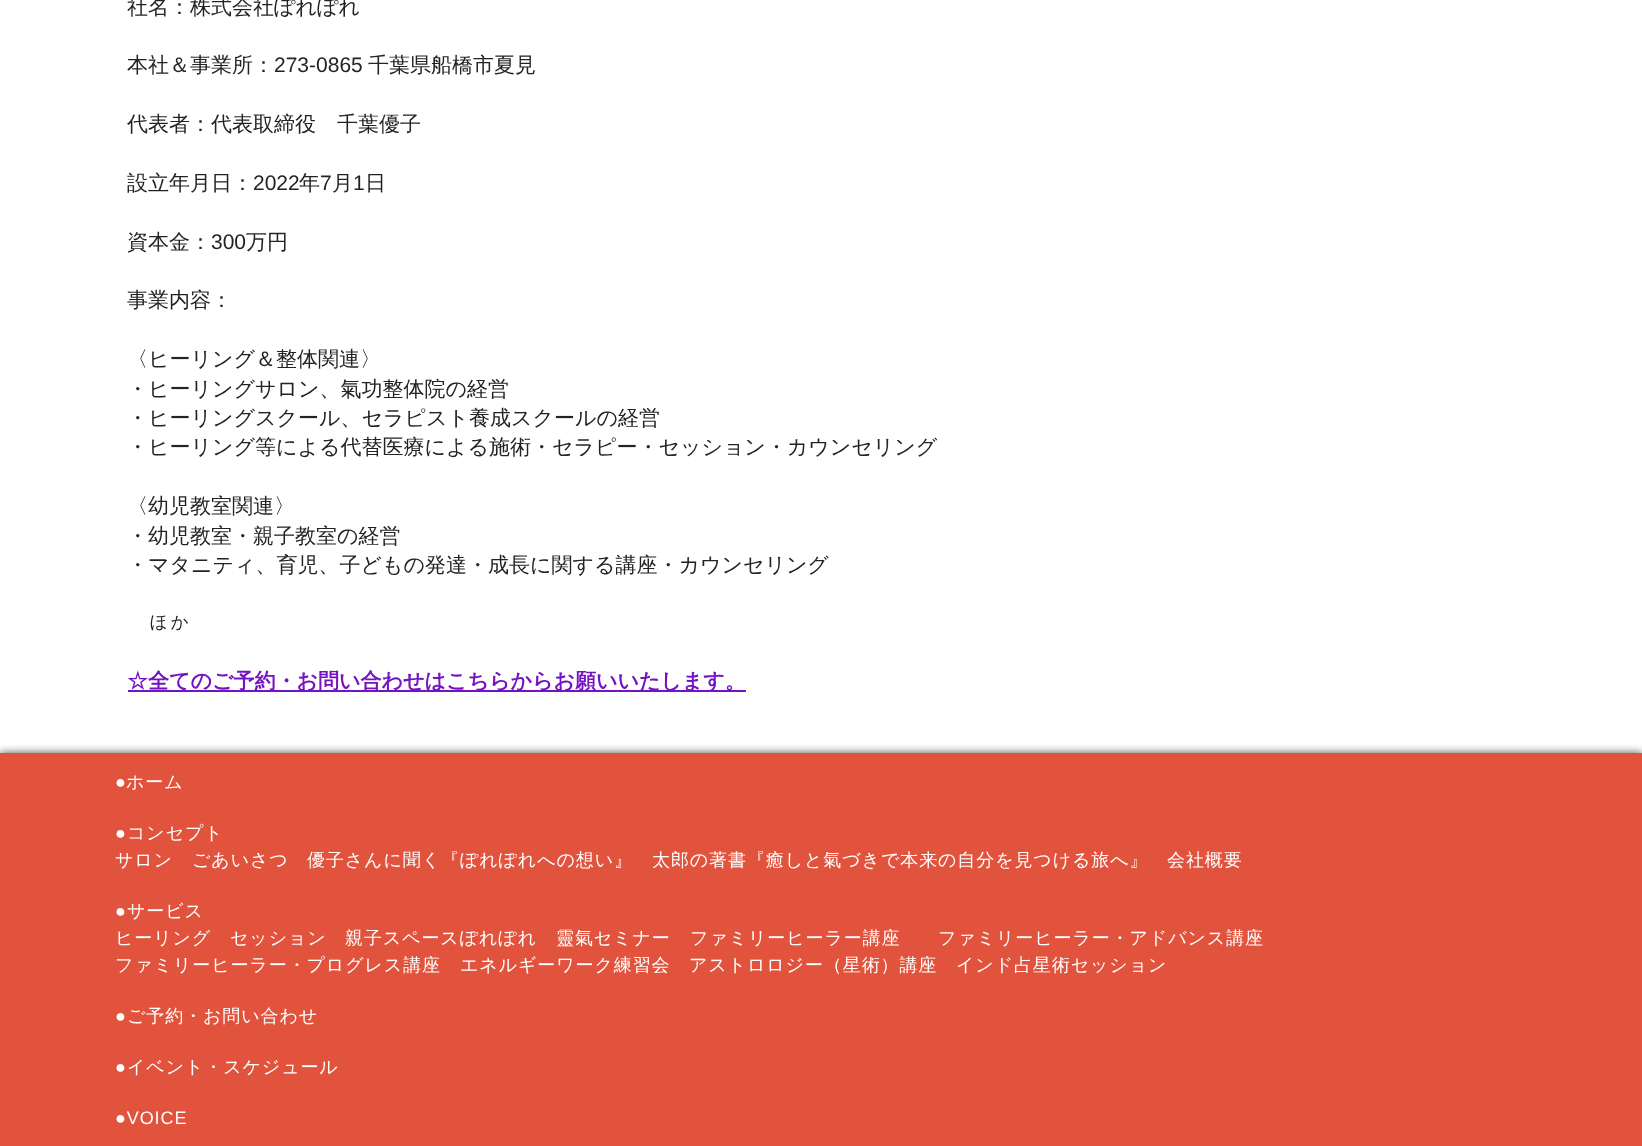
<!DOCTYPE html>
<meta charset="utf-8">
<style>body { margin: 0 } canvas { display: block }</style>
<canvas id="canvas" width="1642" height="1146"></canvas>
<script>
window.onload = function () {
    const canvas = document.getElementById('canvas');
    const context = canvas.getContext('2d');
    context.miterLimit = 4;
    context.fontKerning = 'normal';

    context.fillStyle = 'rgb(255, 255, 255)';
    context.fillRect(0, 0, 1642, 1146);
    context.fillStyle = 'rgb(116, 19, 194)';
    context.fillRect(128, 690, 618, 2);
    context.fillStyle = 'rgba(0, 0, 0, 0.7)';
    context.filter = 'blur(4px)';
    context.beginPath();
    context.rect(0, 753, 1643, 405);
    context.fill();
    context.filter = 'none';
    context.fillStyle = 'rgb(225, 83, 60)';
    context.fillRect(0, 753, 1642, 393);
    context.font = '500 21px WenQuanYi Zen Hei';
    context.fillStyle = 'rgb(35, 35, 35)';
    context.fillText('社名：株式会社ぽれぽれ', 127, 14);
    context.fillText('本社＆事業所：', 127, 72);
    context.font = '21px Liberation Sans';
    context.fillText('273-0865', 274, 72);
    context.font = '500 21px WenQuanYi Zen Hei';
    context.fillText('千葉県船橋市夏見', 368, 72);
    context.fillText('代表者：代表取締役　千葉優子', 127, 131);
    context.fillText('設立年月日：', 127, 190);
    context.font = '21px Liberation Sans';
    context.fillText('2022', 253, 190);
    context.font = '500 21px WenQuanYi Zen Hei';
    context.fillText('年', 299, 190);
    context.font = '21px Liberation Sans';
    context.fillText('7', 320, 190);
    context.font = '500 21px WenQuanYi Zen Hei';
    context.fillText('月', 332, 190);
    context.font = '21px Liberation Sans';
    context.fillText('1', 353, 190);
    context.font = '500 21px WenQuanYi Zen Hei';
    context.fillText('日', 365, 190);
    context.fillText('資本金：', 127, 249);
    context.font = '21px Liberation Sans';
    context.fillText('300', 211, 249);
    context.font = '500 21px WenQuanYi Zen Hei';
    context.fillText('万円', 246, 249);
    context.fillText('事業内容：', 127, 307);
    context.fillText('〈ヒーリング＆整体関連〉', 127, 366);
    context.fillText('・ヒーリングサロン、氣功整体院の経営', 127, 396);
    context.fillText('・ヒーリングスクール、セラピスト養成スクールの経営', 127, 425);
    context.fillText('・ヒーリング等による代替医療による施術・セラピー・セッション・カウンセリング', 127, 454);
    context.fillText('〈幼児教室関連〉', 127, 513);
    context.fillText('・幼児教室・親子教室の経営', 127, 543);
    context.fillText('・マタニティ、育児、子どもの発達・成長に関する講座・カウンセリング', 127, 572);
    context.font = '21px Dotum';
    context.fillText('ほか', 148, 631);
    context.font = 'bold 21px WenQuanYi Zen Hei';
    context.fillStyle = 'rgb(116, 19, 194)';
    context.fillText('☆全てのご予約・お問い合わせはこちらからお願いいたします。', 127, 688);
    context.font = '18px Liberation Sans';
    context.fillStyle = 'rgb(255, 255, 255)';
    context.fillText('●', 115, 788);
    context.letterSpacing = '0.9px';
    context.font = '500 18px WenQuanYi Zen Hei';
    context.fillText('ホーム', 126, 788);
    context.font = '18px Liberation Sans';
    context.fillText('●', 115, 839);
    context.font = '500 18px WenQuanYi Zen Hei';
    context.fillText('コンセプト', 127, 839);
    context.fillText('サロン', 115, 866);
    context.fillText('ごあいさつ', 192, 866);
    context.fillText('優子さんに聞く『ぽれぽれへの想い』', 307, 866);
    context.fillText('太郎の著書『癒しと氣づきで本来の自分を見つける旅へ』', 652, 866);
    context.fillText('会社概要', 1167, 866);
    context.font = '18px Liberation Sans';
    context.fillText('●', 115, 917);
    context.font = '500 18px WenQuanYi Zen Hei';
    context.fillText('サービス', 127, 917);
    context.fillText('ヒーリング', 115, 944);
    context.fillText('セッション', 230, 944);
    context.fillText('親子スペースぽれぽれ', 345, 944);
    context.fillText('靈氣セミナー', 556, 944);
    context.fillText('ファミリーヒーラー講座', 690, 944);
    context.fillText('ファミリーヒーラー・アドバンス講座', 938, 944);
    context.fillText('ファミリーヒーラー・プログレス講座', 115, 971);
    context.fillText('エネルギーワーク練習会', 460, 971);
    context.fillText('アストロロジー（星術）講座', 689, 971);
    context.fillText('インド占星術セッション', 956, 971);
    context.font = '18px Liberation Sans';
    context.fillText('●', 115, 1022);
    context.font = '500 18px WenQuanYi Zen Hei';
    context.fillText('ご予約・お問い合わせ', 127, 1022);
    context.font = '18px Liberation Sans';
    context.fillText('●', 115, 1073);
    context.font = '500 18px WenQuanYi Zen Hei';
    context.fillText('イベント・スケジュール', 127, 1073);
    context.font = '18px Liberation Sans';
    context.fillText('●VOICE', 115, 1124);
};
</script>
